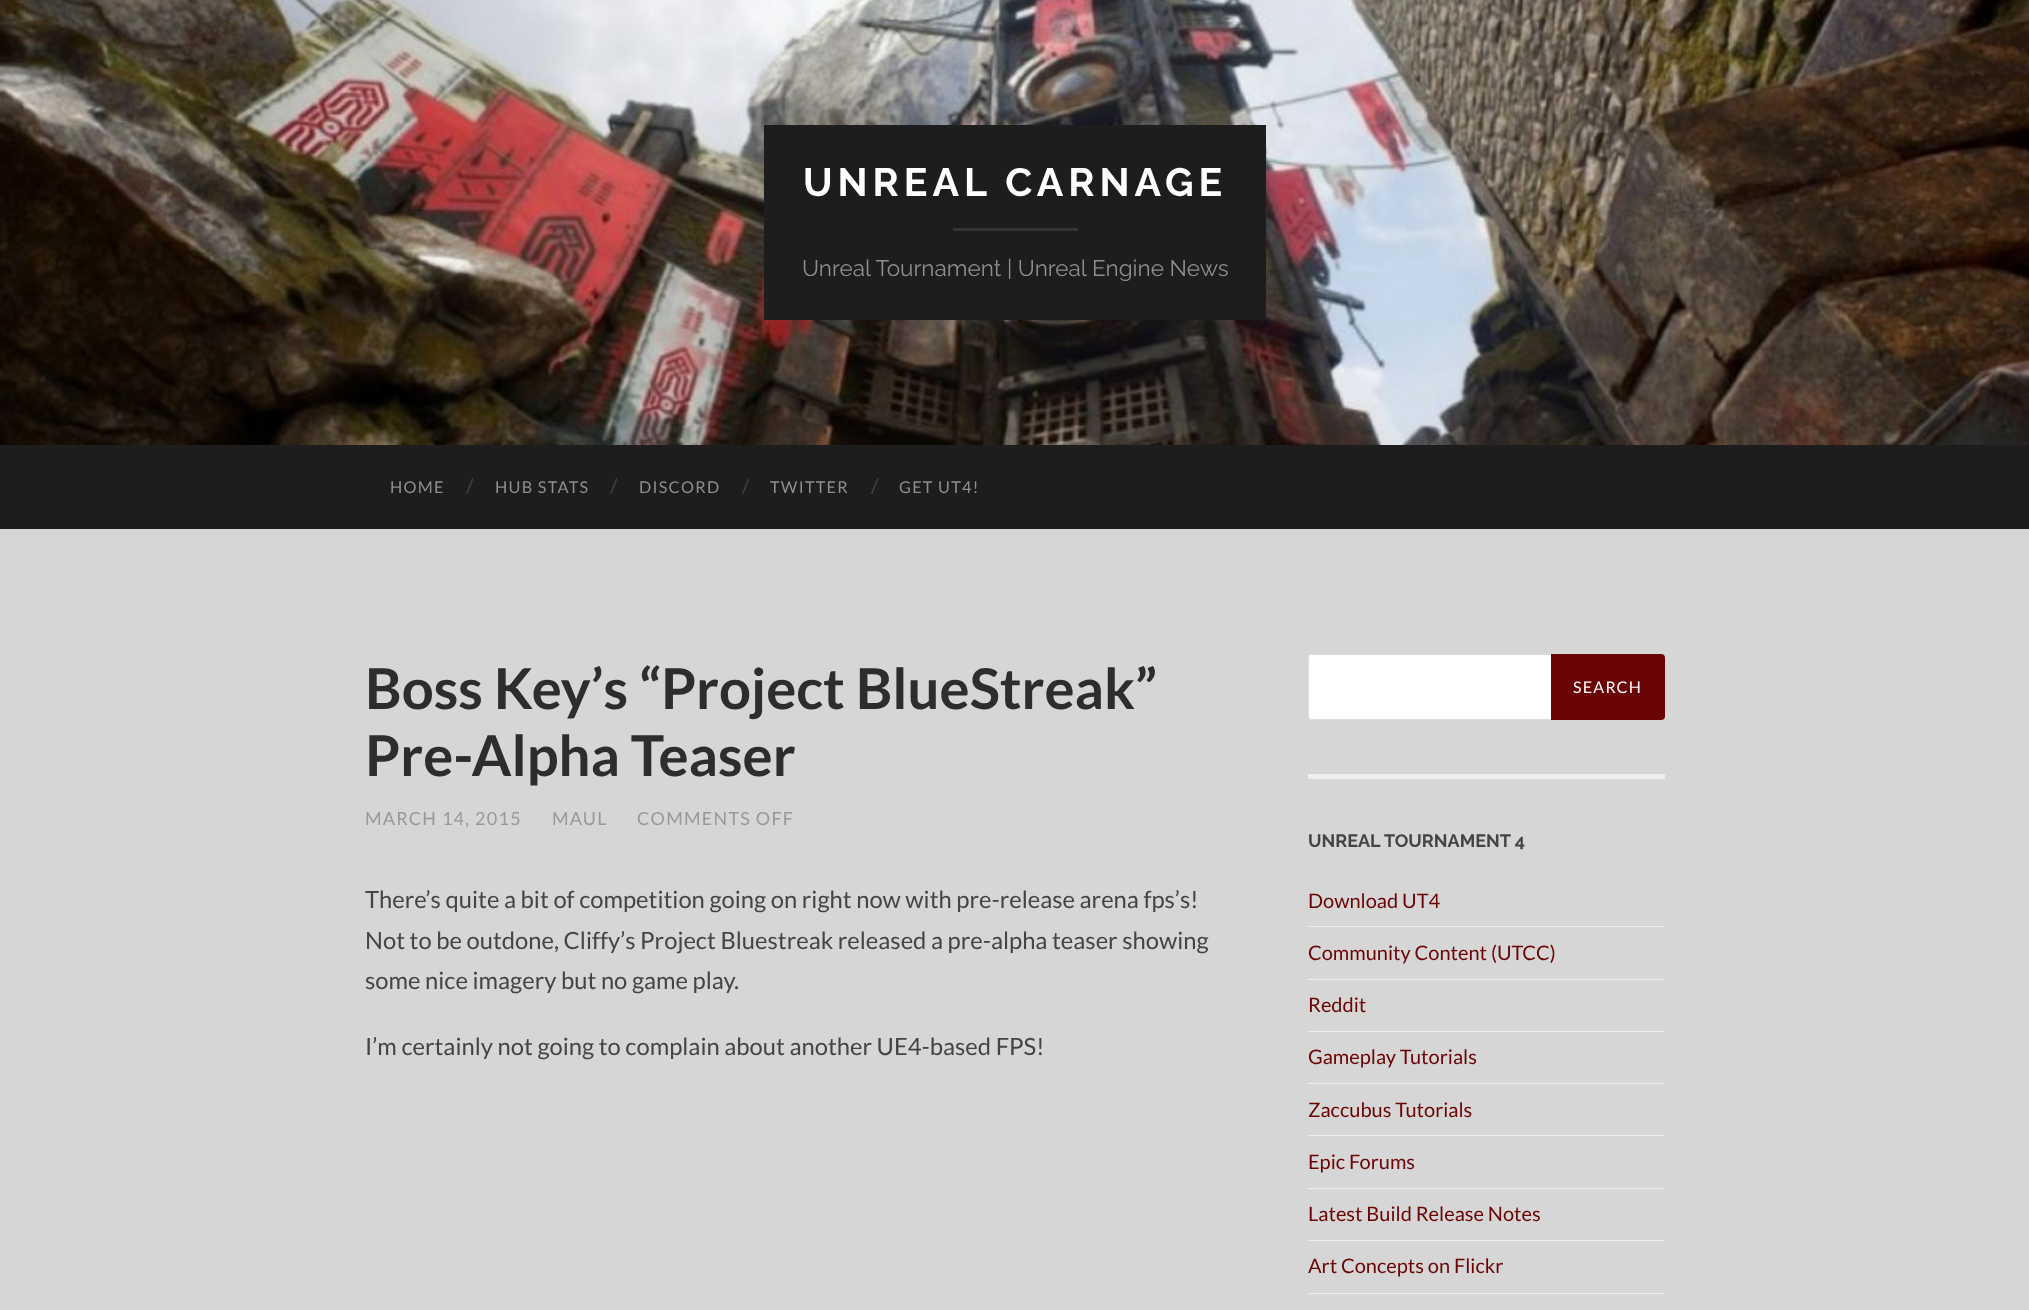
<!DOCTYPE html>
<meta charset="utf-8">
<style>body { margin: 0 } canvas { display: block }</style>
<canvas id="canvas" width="2029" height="1310"></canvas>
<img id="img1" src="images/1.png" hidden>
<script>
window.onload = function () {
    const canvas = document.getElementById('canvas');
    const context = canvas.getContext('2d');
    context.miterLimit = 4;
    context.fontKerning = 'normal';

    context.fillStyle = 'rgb(214, 214, 214)';
    context.fillRect(0, 0, 2029, 1310);
    context.drawImage(document.getElementById('img1'), 0, 0, 2029, 445);
    context.fillStyle = 'rgb(29, 29, 29)';
    context.fillRect(764, 125, 502, 195);
    context.fillStyle = 'rgb(52, 52, 52)';
    context.fillRect(953, 228, 125, 3);
    context.fillStyle = 'rgb(29, 29, 29)';
    context.fillRect(0, 445, 2029, 84);
    context.fillStyle = 'rgb(238, 238, 238)';
    context.fillRect(1308, 774, 357, 5);
    context.fillStyle = 'rgb(255, 255, 255)';
    context.beginPath();
    context.roundRect(1308, 654, 243, 66, [4, 0, 0, 4]);
    context.fill();
    context.fillStyle = 'rgb(221, 221, 221)';
    context.beginPath();
    context.moveTo(1311, 654);
    context.lineTo(1551, 654);
    context.lineTo(1551, 720);
    context.lineTo(1311, 720);
    context.bezierCurveTo(1309, 720, 1308, 718, 1308, 716);
    context.lineTo(1308, 658);
    context.bezierCurveTo(1308, 655, 1309, 654, 1311, 654);
    context.closePath();
    context.moveTo(1311, 655);
    context.lineTo(1551, 655);
    context.lineTo(1551, 719);
    context.lineTo(1311, 719);
    context.bezierCurveTo(1310, 719, 1309, 718, 1309, 716);
    context.lineTo(1309, 658);
    context.bezierCurveTo(1309, 656, 1310, 655, 1311, 655);
    context.closePath();
    context.fill('evenodd');
    context.fillStyle = 'rgb(107, 4, 4)';
    context.beginPath();
    context.roundRect(1551, 654, 114, 66, [0, 4, 4, 0]);
    context.fill();
    context.fillStyle = 'rgb(238, 238, 238)';
    context.fillRect(1308, 926, 357, 1);
    context.fillRect(1308, 979, 357, 1);
    context.fillRect(1308, 1031, 357, 1);
    context.fillRect(1308, 1083, 357, 1);
    context.fillRect(1308, 1135, 357, 1);
    context.fillRect(1308, 1188, 357, 1);
    context.fillRect(1308, 1240, 357, 1);
    context.fillRect(1308, 1293, 357, 1);
    context.letterSpacing = '5px';
    context.font = 'bold 39.4px Raleway';
    context.fillStyle = 'rgb(255, 255, 255)';
    context.fillText('UNREAL CARNAGE', 803, 196);
    context.letterSpacing = '0px';
    context.font = '22.5px Raleway';
    context.fillStyle = 'rgb(142, 142, 142)';
    context.fillText('Unreal Tournament | Unreal Engine News', 802, 276);
    context.letterSpacing = '1.25px';
    context.font = '16.25px Lato';
    context.fillText('HOME', 390, 493);
    context.letterSpacing = '0px';
    context.font = '20px Lato';
    context.fillStyle = 'rgb(68, 68, 68)';
    context.fillText('/', 466, 493);
    context.letterSpacing = '1.25px';
    context.font = '16.25px Lato';
    context.fillStyle = 'rgb(142, 142, 142)';
    context.fillText('HUB STATS', 495, 493);
    context.letterSpacing = '0px';
    context.font = '20px Lato';
    context.fillStyle = 'rgb(68, 68, 68)';
    context.fillText('/', 610, 493);
    context.letterSpacing = '1.25px';
    context.font = '16.25px Lato';
    context.fillStyle = 'rgb(142, 142, 142)';
    context.fillText('DISCORD', 639, 493);
    context.letterSpacing = '0px';
    context.font = '20px Lato';
    context.fillStyle = 'rgb(68, 68, 68)';
    context.fillText('/', 742, 493);
    context.letterSpacing = '1.25px';
    context.font = '16.25px Lato';
    context.fillStyle = 'rgb(142, 142, 142)';
    context.fillText('TWITTER', 770, 493);
    context.letterSpacing = '0px';
    context.font = '20px Lato';
    context.fillStyle = 'rgb(68, 68, 68)';
    context.fillText('/', 871, 493);
    context.letterSpacing = '1.25px';
    context.font = '16.25px Lato';
    context.fillStyle = 'rgb(142, 142, 142)';
    context.fillText('GET UT4!', 899, 493);
    context.letterSpacing = '0px';
    context.font = 'bold 56.25px Lato';
    context.fillStyle = 'rgb(45, 45, 45)';
    context.fillText('Boss Key’s “Project BlueStreak”', 365, 709);
    context.fillText('Pre-Alpha Teaser', 365, 776);
    context.letterSpacing = '1.25px';
    context.font = '18px Lato';
    context.fillStyle = 'rgb(153, 153, 153)';
    context.fillText('MARCH 14, 2015', 365, 825);
    context.fillText('MAUL', 552, 825);
    context.fillText('COMMENTS OFF', 637, 825);
    context.letterSpacing = '0px';
    context.font = '23.75px Lato';
    context.fillStyle = 'rgb(68, 68, 68)';
    context.fillText('There’s quite a bit of competition going on right now with pre-release arena fps’s!', 365, 908);
    context.fillText('Not to be outdone, Cliffy’s Project Bluestreak released a pre-alpha teaser showing', 365, 949);
    context.fillText('some nice imagery but no game play.', 365, 989);
    context.fillText('I’m certainly not going to complain about another UE4-based FPS!', 365, 1055);
    context.letterSpacing = '1.25px';
    context.font = '16px Lato';
    context.fillStyle = 'rgb(255, 255, 255)';
    context.fillText('SEARCH', 1573, 693);
    context.letterSpacing = '0px';
    context.font = 'bold 18px Raleway';
    context.fillStyle = 'rgb(68, 68, 68)';
    context.fillText('UNREAL TOURNAMENT 4', 1308, 847);
    context.font = '20px Lato';
    context.fillStyle = 'rgb(107, 4, 4)';
    context.fillText('Download UT4', 1308, 908);
    context.fillText('Community Content (UTCC)', 1308, 960);
    context.fillText('Reddit', 1308, 1012);
    context.fillText('Gameplay Tutorials', 1308, 1064);
    context.fillText('Zaccubus Tutorials', 1308, 1117);
    context.fillText('Epic Forums', 1308, 1169);
    context.fillText('Latest Build Release Notes', 1308, 1221);
    context.fillText('Art Concepts on Flickr', 1308, 1273);
};
</script>
